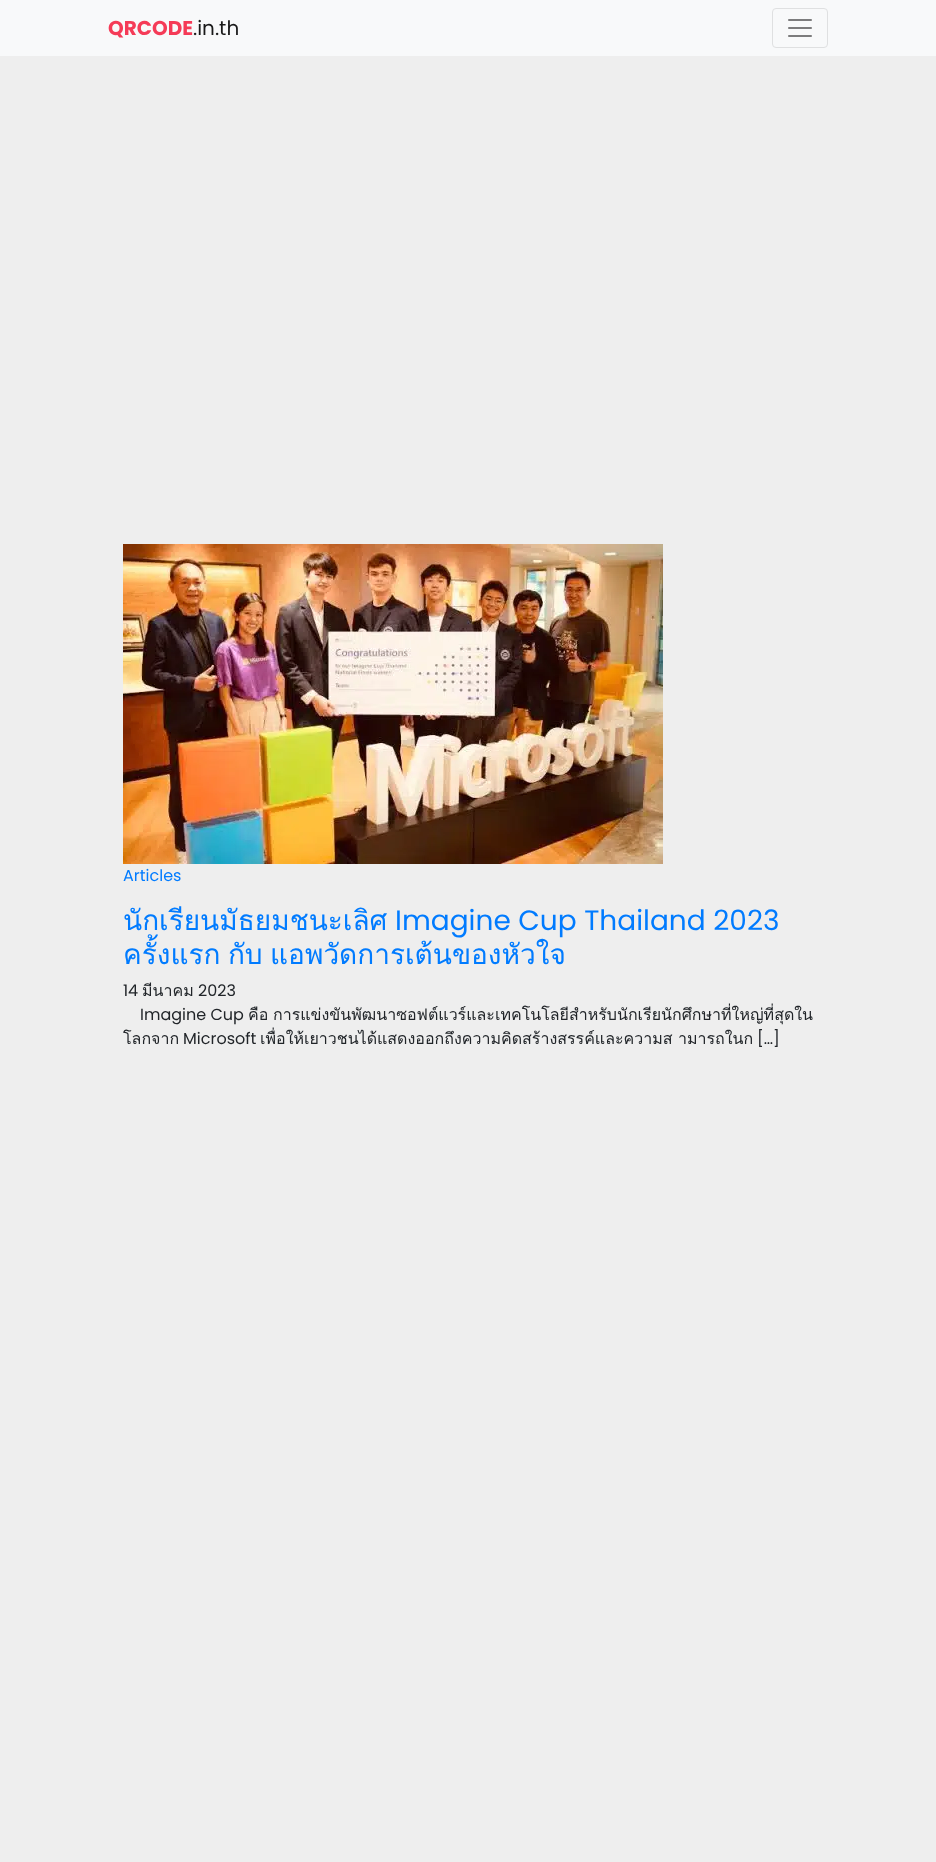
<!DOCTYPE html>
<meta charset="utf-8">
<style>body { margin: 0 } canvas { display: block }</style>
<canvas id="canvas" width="936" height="1862"></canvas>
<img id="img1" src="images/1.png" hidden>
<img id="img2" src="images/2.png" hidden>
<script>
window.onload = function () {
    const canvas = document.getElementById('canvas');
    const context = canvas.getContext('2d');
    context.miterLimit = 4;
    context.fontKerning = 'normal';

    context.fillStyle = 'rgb(238, 238, 238)';
    context.fillRect(0, 0, 936, 1862);
    context.fillStyle = 'rgb(248, 249, 250)';
    context.fillRect(0, 0, 936, 56);
    context.beginPath();
    context.roundRect(772.5, 8.5, 55, 39, 3.5);
    context.strokeStyle = 'rgb(223, 224, 225)';
    context.stroke();
    context.drawImage(document.getElementById('img1'), 788, 19, 24, 18);
    context.drawImage(document.getElementById('img2'), 123, 544, 540, 320);
    context.font = 'bold 20px Poppins';
    context.fillStyle = 'rgb(245, 59, 87)';
    context.fillText('QRCODE', 108, 35);
    context.font = '20px Poppins';
    context.fillStyle = 'rgb(25, 25, 25)';
    context.fillText('.in.th', 193, 35);
    context.font = '16px Poppins';
    context.fillStyle = 'rgb(0, 123, 255)';
    context.fillText('Articles', 123, 881);
    context.font = '28px Loma';
    context.fillText('นักเรียนมัธยมชนะเลิศ', 123, 930);
    context.font = '28px Poppins';
    context.fillText('Imagine Cup Thailand 2023', 395, 930);
    context.wordSpacing = '-2px';
    context.font = '28px Loma';
    context.fillText('ครั้งแรก กับ แอพวัดการเต้นของหัวใจ', 123, 964);
    context.wordSpacing = '0px';
    context.font = '16px Poppins';
    context.fillStyle = 'rgb(33, 37, 41)';
    context.fillText('14', 123, 996);
    context.font = '16px Loma';
    context.fillText('มีนาคม', 142, 996);
    context.font = '16px Poppins';
    context.fillText('2023', 198, 996);
    context.fillText('Imagine Cup', 140, 1020);
    context.font = '16px Loma';
    context.fillText('คือ', 248, 1020);
    context.fillText('การแข่งขันพัฒนาซอฟต์แวร์และเทคโนโลยีสำหรับนักเรียนักศึกษาที่ใหญ่ที่สุดใน', 273, 1020);
    context.fillText('โลกจาก', 123, 1044);
    context.font = '16px Poppins';
    context.fillText('Microsoft', 183, 1044);
    context.font = '16px Loma';
    context.fillText('เพื่อให้เยาวชนได้แสดงออกถึงความคิดสร้างสรรค์และความส ามารถในก', 260, 1044);
    context.font = '16px Poppins';
    context.fillText('[…]', 757, 1044);
};
</script>
